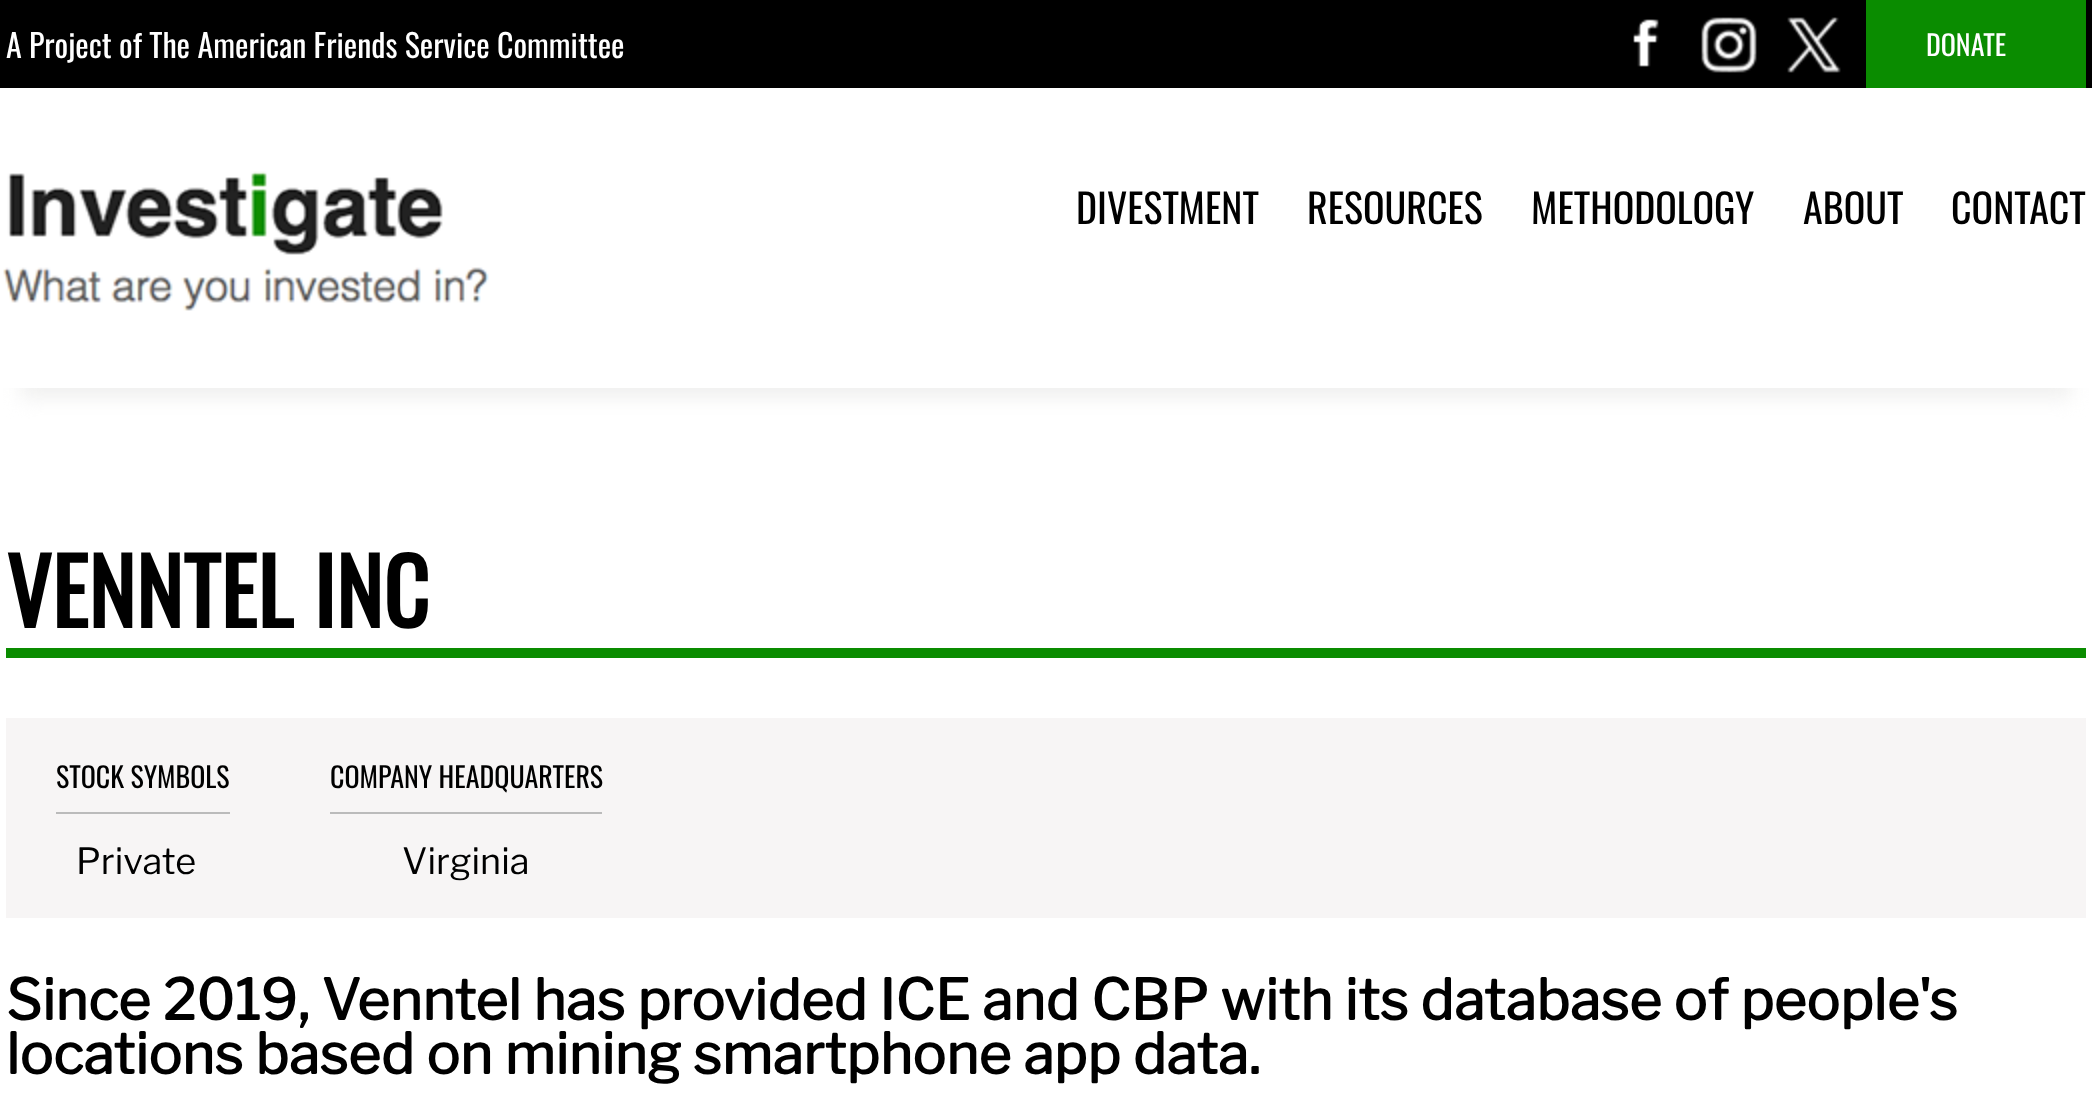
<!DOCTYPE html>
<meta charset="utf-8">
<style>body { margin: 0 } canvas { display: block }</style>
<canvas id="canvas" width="2092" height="1104"></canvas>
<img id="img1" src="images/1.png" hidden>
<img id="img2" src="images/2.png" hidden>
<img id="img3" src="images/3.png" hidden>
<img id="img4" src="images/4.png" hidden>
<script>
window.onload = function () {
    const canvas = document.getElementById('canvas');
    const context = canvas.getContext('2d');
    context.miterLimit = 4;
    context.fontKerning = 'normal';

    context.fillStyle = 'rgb(255, 255, 255)';
    context.fillRect(0, 0, 2092, 1104);
    context.fillStyle = 'rgb(0, 0, 0)';
    context.fillRect(0, 0, 2092, 88);
    context.drawImage(document.getElementById('img1'), 1633, 19, 26, 48);
    context.drawImage(document.getElementById('img2'), 1701, 17, 56, 56);
    context.drawImage(document.getElementById('img3'), 1787, 17, 54, 56);
    context.fillStyle = 'rgb(10, 140, 0)';
    context.fillRect(1866, 0, 220, 88);
    context.save();
    context.beginPath();
    context.rect(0, 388, 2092, 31);
    context.clip();
    context.fillStyle = 'rgb(240, 240, 239)';
    context.filter = 'blur(10px)';
    context.beginPath();
    context.rect(20, 138, 2052, 260);
    context.fill();
    context.filter = 'none';
    context.restore();
    context.drawImage(document.getElementById('img4'), 3, 171, 486, 140);
    context.fillRect(6, 648, 2080, 10);
    context.fillStyle = 'rgb(247, 245, 245)';
    context.fillRect(6, 718, 2080, 200);
    context.fillStyle = 'rgb(187, 187, 187)';
    context.fillRect(56, 812, 174, 2);
    context.fillRect(330, 812, 272, 2);
    context.font = '32px Oswald';
    context.fillStyle = 'rgb(255, 255, 255)';
    context.fillText('A Project of The American Friends Service Committee', 6, 58);
    context.font = '28px Oswald';
    context.fillText('DONATE', 1926, 56);
    context.font = '40px Oswald';
    context.fillStyle = 'rgb(0, 0, 0)';
    context.fillText('DIVESTMENT', 1076, 224);
    context.fillText('RESOURCES', 1307, 224);
    context.fillText('METHODOLOGY', 1531, 224);
    context.fillText('ABOUT', 1803, 224);
    context.fillText('CONTACT', 1951, 224);
    context.font = 'bold 90px Oswald';
    context.fillText('VENNTEL INC', 6, 628);
    context.font = '28px Oswald';
    context.fillText('STOCK SYMBOLS', 56, 788);
    context.font = '100 36px Libre Franklin';
    context.fillText('Private', 76, 874);
    context.font = '28px Oswald';
    context.fillText('COMPANY HEADQUARTERS', 330, 788);
    context.font = '100 36px Libre Franklin';
    context.fillText('Virginia', 402, 874);
    context.font = 'bold 56px Libre Franklin';
    context.fillText('Since 2019, Venntel has provided ICE and CBP with its database of people\'s', 6, 1020);
    context.fillText('locations based on mining smartphone app data.', 6, 1074);
};
</script>
